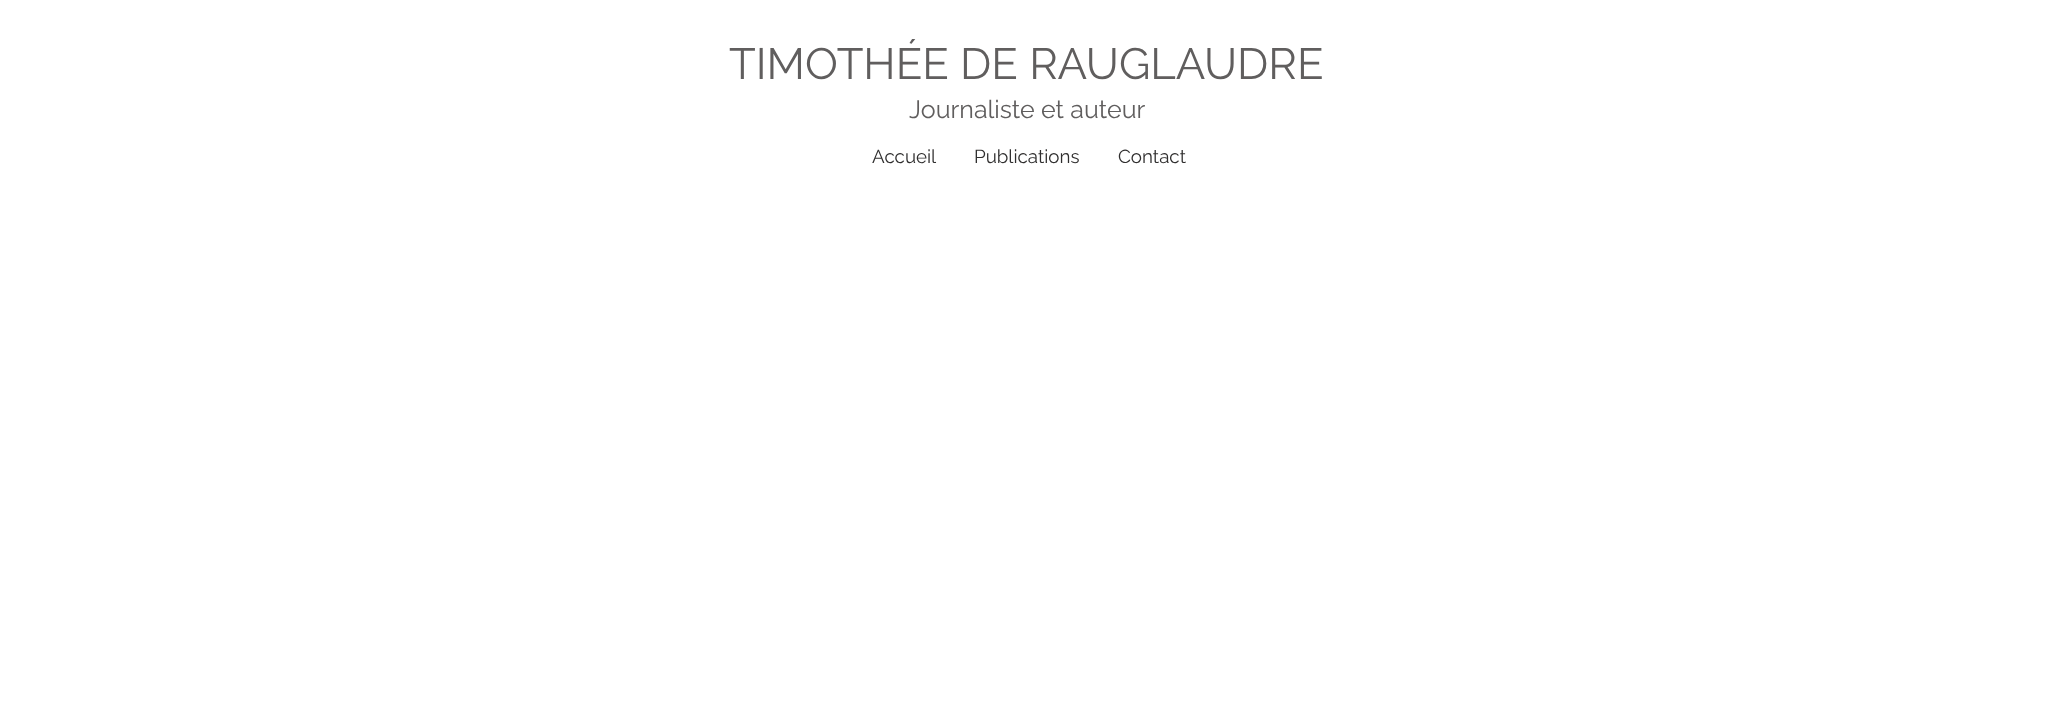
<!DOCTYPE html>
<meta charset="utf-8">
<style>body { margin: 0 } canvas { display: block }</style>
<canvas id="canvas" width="2053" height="716"></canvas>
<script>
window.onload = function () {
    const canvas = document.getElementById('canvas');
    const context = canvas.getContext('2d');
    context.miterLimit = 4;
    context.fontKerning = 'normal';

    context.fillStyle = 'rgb(255, 255, 255)';
    context.fillRect(0, 0, 2053, 716);
    context.font = '43.75px Raleway';
    context.fillStyle = 'rgb(96, 94, 94)';
    context.fillText('TIMOTHÉE DE RAUGLAUDRE', 729, 79);
    context.font = '25px Raleway';
    context.fillText('Journaliste et auteur', 909, 118);
    context.font = '18.75px Raleway';
    context.fillStyle = 'rgb(47, 46, 46)';
    context.fillText('Accueil', 872, 163);
    context.fillText('Publications', 974, 163);
    context.fillText('Contact', 1118, 163);
};
</script>
